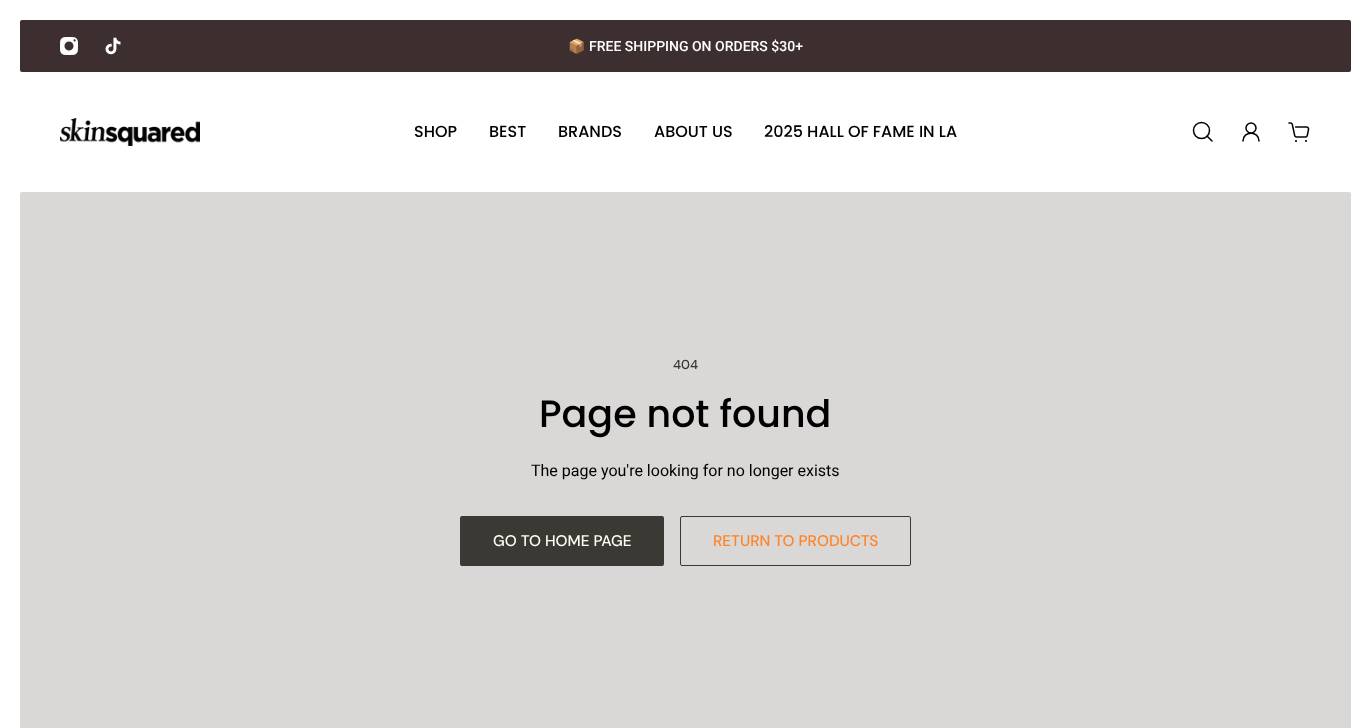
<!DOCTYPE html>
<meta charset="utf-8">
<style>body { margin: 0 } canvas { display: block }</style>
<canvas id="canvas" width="1371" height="728"></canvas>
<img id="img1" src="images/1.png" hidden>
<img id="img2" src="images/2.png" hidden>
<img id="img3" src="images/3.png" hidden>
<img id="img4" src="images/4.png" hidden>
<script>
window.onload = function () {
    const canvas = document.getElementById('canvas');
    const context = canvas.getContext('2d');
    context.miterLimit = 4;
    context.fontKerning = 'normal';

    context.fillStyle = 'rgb(255, 255, 255)';
    context.fillRect(0, 0, 1371, 728);
    context.fillStyle = 'rgb(61, 47, 48)';
    context.beginPath();
    context.roundRect(20, 20, 1331, 52, 2);
    context.fill();
    context.drawImage(document.getElementById('img1'), 60, 37, 18, 18);
    context.drawImage(document.getElementById('img2'), 105, 37, 16, 18);
    context.drawImage(document.getElementById('img3'), 60, 118, 140, 28);
    context.beginPath();
    context.arc(1201.5, 130.5, 8, 0, 2 * Math.PI);
    context.strokeStyle = 'rgb(0, 0, 0)';
    context.lineWidth = 1.5;
    context.stroke();
    context.beginPath();
    context.moveTo(1207, 136);
    context.lineTo(1212, 141);
    context.lineCap = 'round';
    context.lineJoin = 'round';
    context.stroke();
    context.beginPath();
    context.arc(1251, 128, 5, 0, 2 * Math.PI);
    context.stroke();
    context.beginPath();
    context.moveTo(1259, 141);
    context.bezierCurveTo(1259, 130.5, 1243, 130.5, 1243, 141);
    context.stroke();
    context.drawImage(document.getElementById('img4'), 1288, 122, 22, 20);
    context.fillStyle = 'rgb(217, 216, 215)';
    context.beginPath();
    context.roundRect(20, 192, 1331, 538, 2);
    context.fill();
    context.fillStyle = 'rgb(59, 57, 51)';
    context.beginPath();
    context.roundRect(460, 516, 204, 50, 2);
    context.fill();
    context.beginPath();
    context.roundRect(680.5, 516.5, 230, 49, 1.5);
    context.strokeStyle = 'rgb(59, 57, 51)';
    context.lineWidth = 1;
    context.lineJoin = 'miter';
    context.stroke();
    context.font = '14px Noto Color Emoji';
    context.fillStyle = 'rgb(255, 255, 255)';
    context.fillText('📦', 568, 51);
    context.font = '500 14px Roboto';
    context.fillText('FREE SHIPPING ON ORDERS $30+', 589, 51);
    context.font = '500 16px Poppins';
    context.fillStyle = 'rgb(0, 0, 0)';
    context.fillText('SHOP', 414, 137);
    context.fillText('BEST', 489, 137);
    context.fillText('BRANDS', 558, 137);
    context.fillText('ABOUT US', 654, 137);
    context.fillText('2025 HALL OF FAME IN LA', 764, 137);
    context.font = '500 13px DM Sans';
    context.fillStyle = 'rgb(54, 54, 54)';
    context.fillText('404', 673, 369);
    context.font = '500 38px Poppins';
    context.fillStyle = 'rgb(0, 0, 0)';
    context.fillText('Page not found', 539, 427);
    context.font = '16px Roboto';
    context.fillText('The page you\'re looking for no longer exists', 531, 476);
    context.font = '500 15.4px "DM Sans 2"';
    context.fillStyle = 'rgb(255, 253, 245)';
    context.fillText('GO TO HOME PAGE', 493, 546);
    context.fillStyle = 'rgb(255, 131, 41)';
    context.fillText('RETURN TO PRODUCTS', 713, 546);
};
</script>
